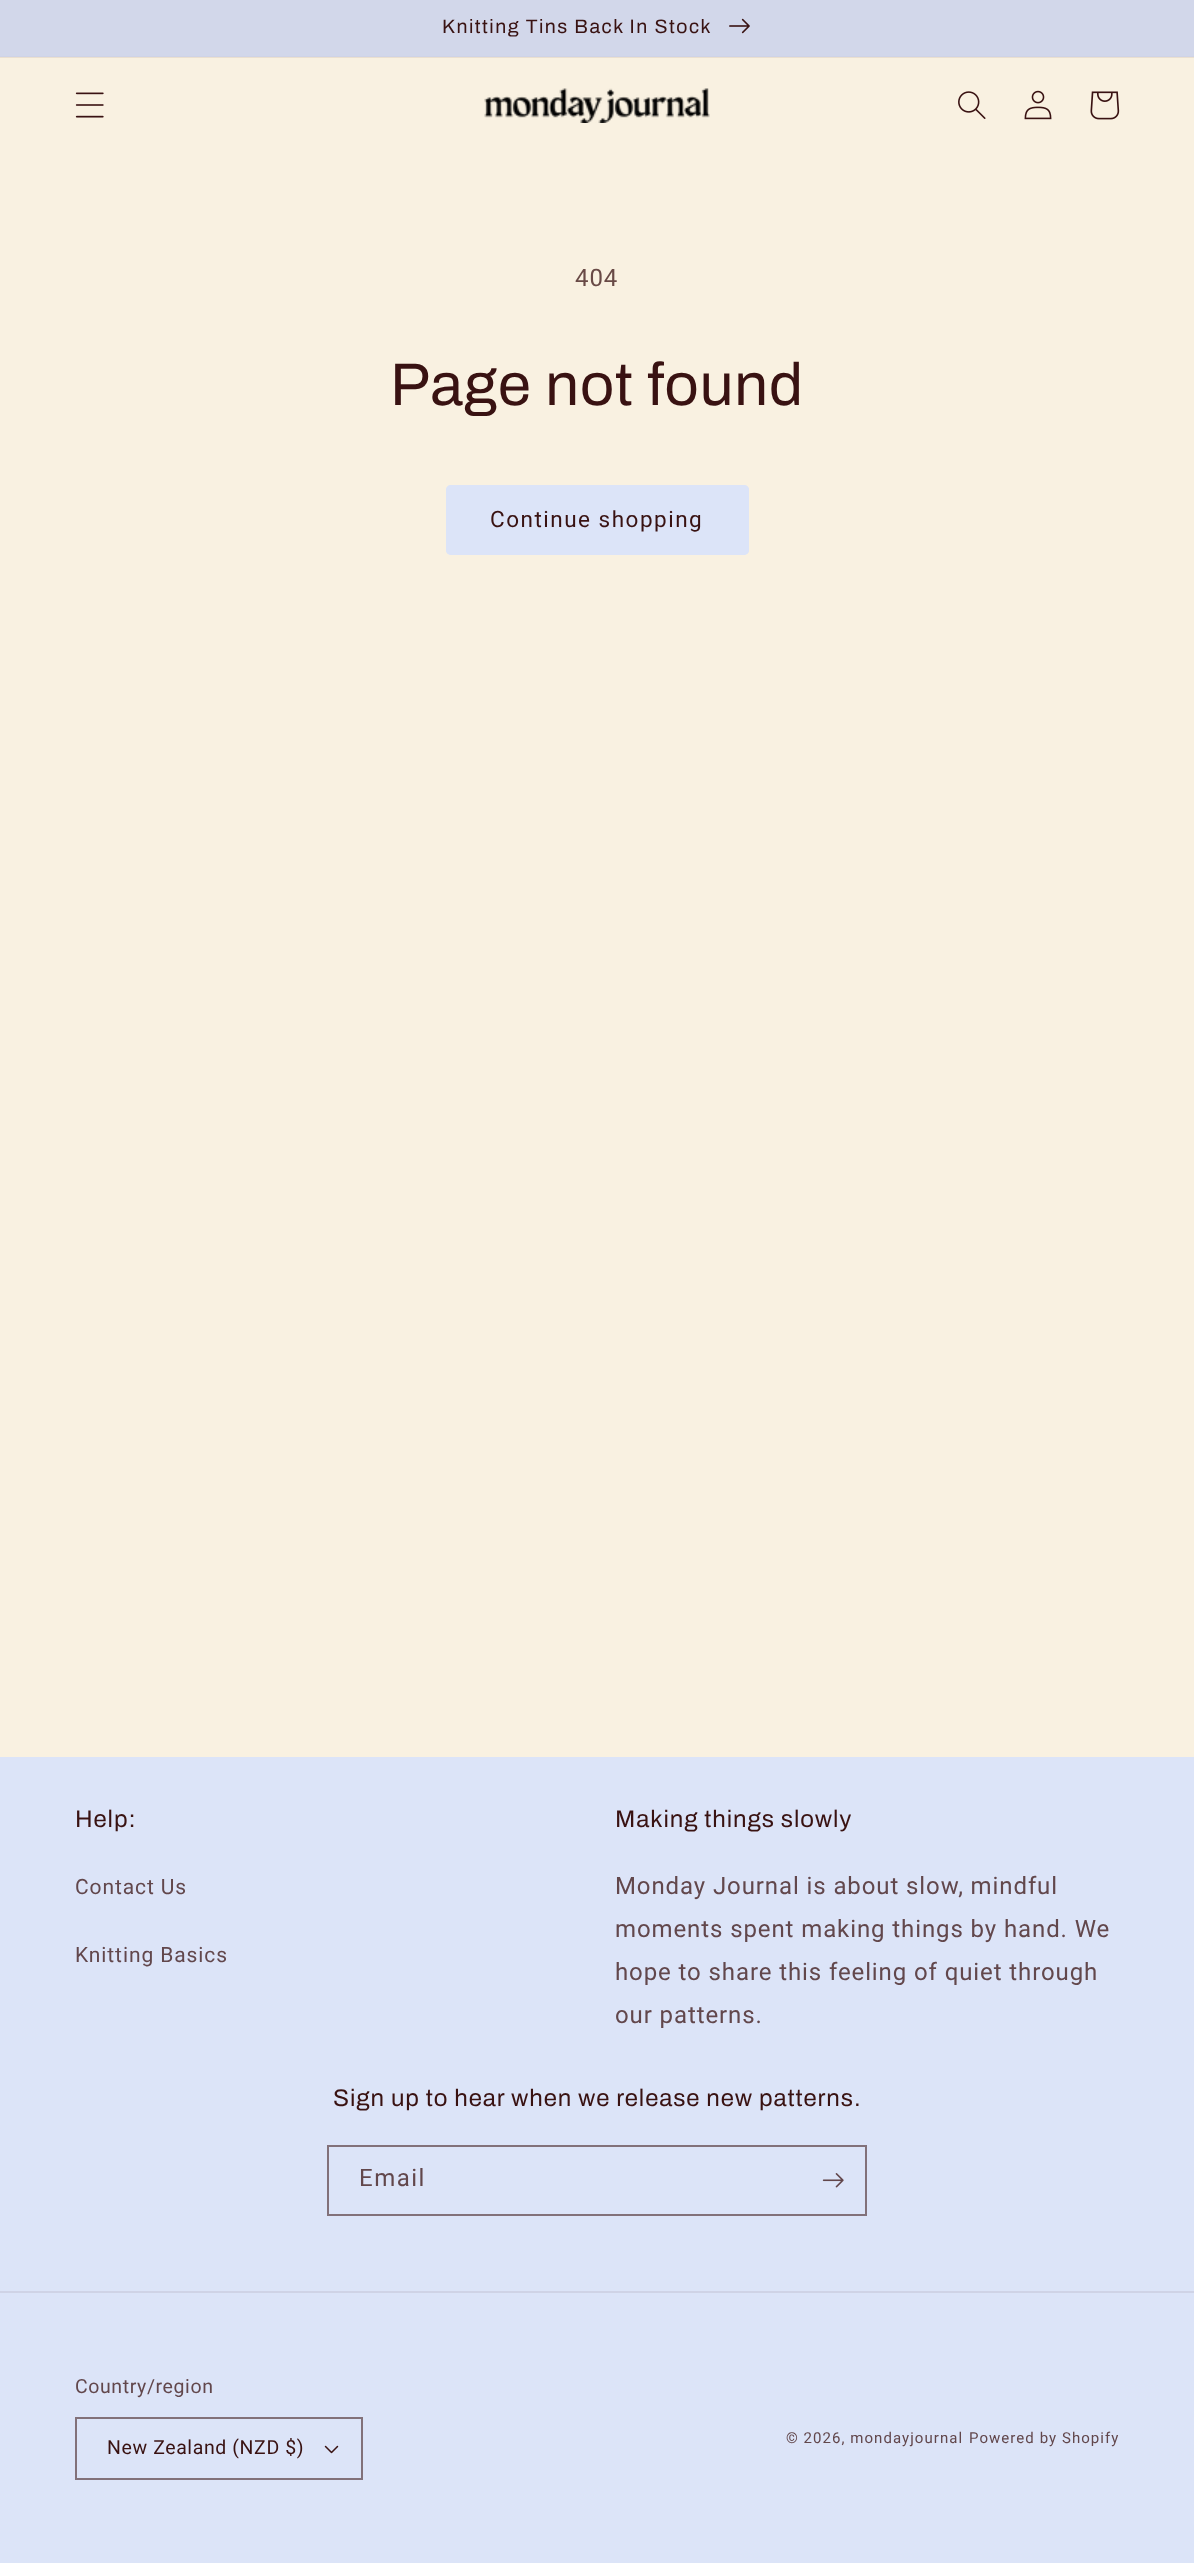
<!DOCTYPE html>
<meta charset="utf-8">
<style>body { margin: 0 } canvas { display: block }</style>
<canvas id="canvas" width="1194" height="2563"></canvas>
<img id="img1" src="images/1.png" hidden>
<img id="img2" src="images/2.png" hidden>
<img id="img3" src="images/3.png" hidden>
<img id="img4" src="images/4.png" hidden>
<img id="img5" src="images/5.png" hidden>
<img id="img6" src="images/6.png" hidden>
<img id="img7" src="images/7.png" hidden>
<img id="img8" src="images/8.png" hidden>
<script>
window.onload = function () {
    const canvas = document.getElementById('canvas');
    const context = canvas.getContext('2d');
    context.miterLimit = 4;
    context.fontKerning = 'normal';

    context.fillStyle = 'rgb(249, 241, 225)';
    context.fillRect(0, 0, 1194, 2563);
    context.fillStyle = 'rgb(234, 223, 208)';
    context.fillRect(0, 57, 1194, 1);
    context.fillStyle = 'rgb(207, 211, 230)';
    context.fillRect(0, 56, 1194, 1);
    context.fillStyle = 'rgb(210, 215, 234)';
    context.fillRect(0, 0, 1194, 56);
    context.drawImage(document.getElementById('img1'), 729, 18, 21, 16);
    context.drawImage(document.getElementById('img2'), 75, 92, 29, 26);
    context.drawImage(document.getElementById('img3'), 484, 88, 226, 35);
    context.drawImage(document.getElementById('img4'), 958, 91, 28, 28);
    context.drawImage(document.getElementById('img5'), 1024, 90, 28, 30);
    context.drawImage(document.getElementById('img6'), 1090, 91, 30, 29);
    context.fillStyle = 'rgb(220, 228, 248)';
    context.beginPath();
    context.roundRect(446, 485, 303, 70, 5);
    context.fill();
    context.beginPath();
    context.roundRect(447, 486, 301, 68, 4);
    context.strokeStyle = 'rgb(220, 228, 248)';
    context.lineWidth = 2;
    context.stroke();
    context.fillRect(0, 1757, 1194, 806);
    context.strokeStyle = 'rgb(130, 113, 122)';
    context.strokeRect(328, 2146, 538, 69);
    context.drawImage(document.getElementById('img7'), 822, 2173, 22, 15);
    context.fillStyle = 'rgb(207, 211, 230)';
    context.fillRect(0, 2291, 1194, 2);
    context.drawImage(document.getElementById('img8'), 324, 2445, 15, 9);
    context.strokeRect(76, 2418, 286, 61);
    context.letterSpacing = '1.5px';
    context.font = '19.5px Archivo';
    context.fillStyle = 'rgb(57, 18, 18)';
    context.fillText('Knitting Tins Back In Stock', 442, 33);
    context.letterSpacing = '0.9px';
    context.font = '24px Roboto';
    context.fillStyle = 'rgb(105, 74, 70)';
    context.fillText('404', 575, 286);
    context.font = '60px Archivo';
    context.fillStyle = 'rgb(57, 18, 18)';
    context.fillText('Page not found', 390, 405);
    context.letterSpacing = '1.5px';
    context.font = '22.5px Roboto';
    context.fillText('Continue shopping', 490, 527);
    context.letterSpacing = '0.9px';
    context.font = '24px Archivo';
    context.fillText('Help:', 75, 1827);
    context.font = '21px Roboto';
    context.fillStyle = 'rgb(98, 71, 76)';
    context.fillText('Contact Us', 75, 1894);
    context.fillText('Knitting Basics', 75, 1962);
    context.font = '24px Archivo';
    context.fillStyle = 'rgb(57, 18, 18)';
    context.fillText('Making things slowly', 615, 1827);
    context.font = '24px Roboto';
    context.fillStyle = 'rgb(98, 71, 76)';
    context.fillText('Monday Journal is about slow, mindful', 615, 1894);
    context.fillText('moments spent making things by hand. We', 615, 1937);
    context.fillText('hope to share this feeling of quiet through', 615, 1980);
    context.fillText('our patterns.', 615, 2023);
    context.font = '24px Archivo';
    context.fillStyle = 'rgb(57, 18, 18)';
    context.fillText('Sign up to hear when we release new patterns.', 333, 2106);
    context.letterSpacing = '1.5px';
    context.font = '24px Roboto';
    context.fillStyle = 'rgb(98, 71, 76)';
    context.fillText('Email', 359, 2186);
    context.letterSpacing = '0.6px';
    context.font = '19.5px Roboto';
    context.fillText('Country/region', 75, 2393);
    context.fillStyle = 'rgb(57, 18, 18)';
    context.fillText('New Zealand (NZD $)', 107, 2454);
    context.letterSpacing = '1.05px';
    context.font = '15px Roboto';
    context.fillStyle = 'rgb(98, 71, 76)';
    context.fillText('© 2026, mondayjournal', 786, 2443);
    context.fillText('Powered by Shopify', 969, 2443);
};
</script>
